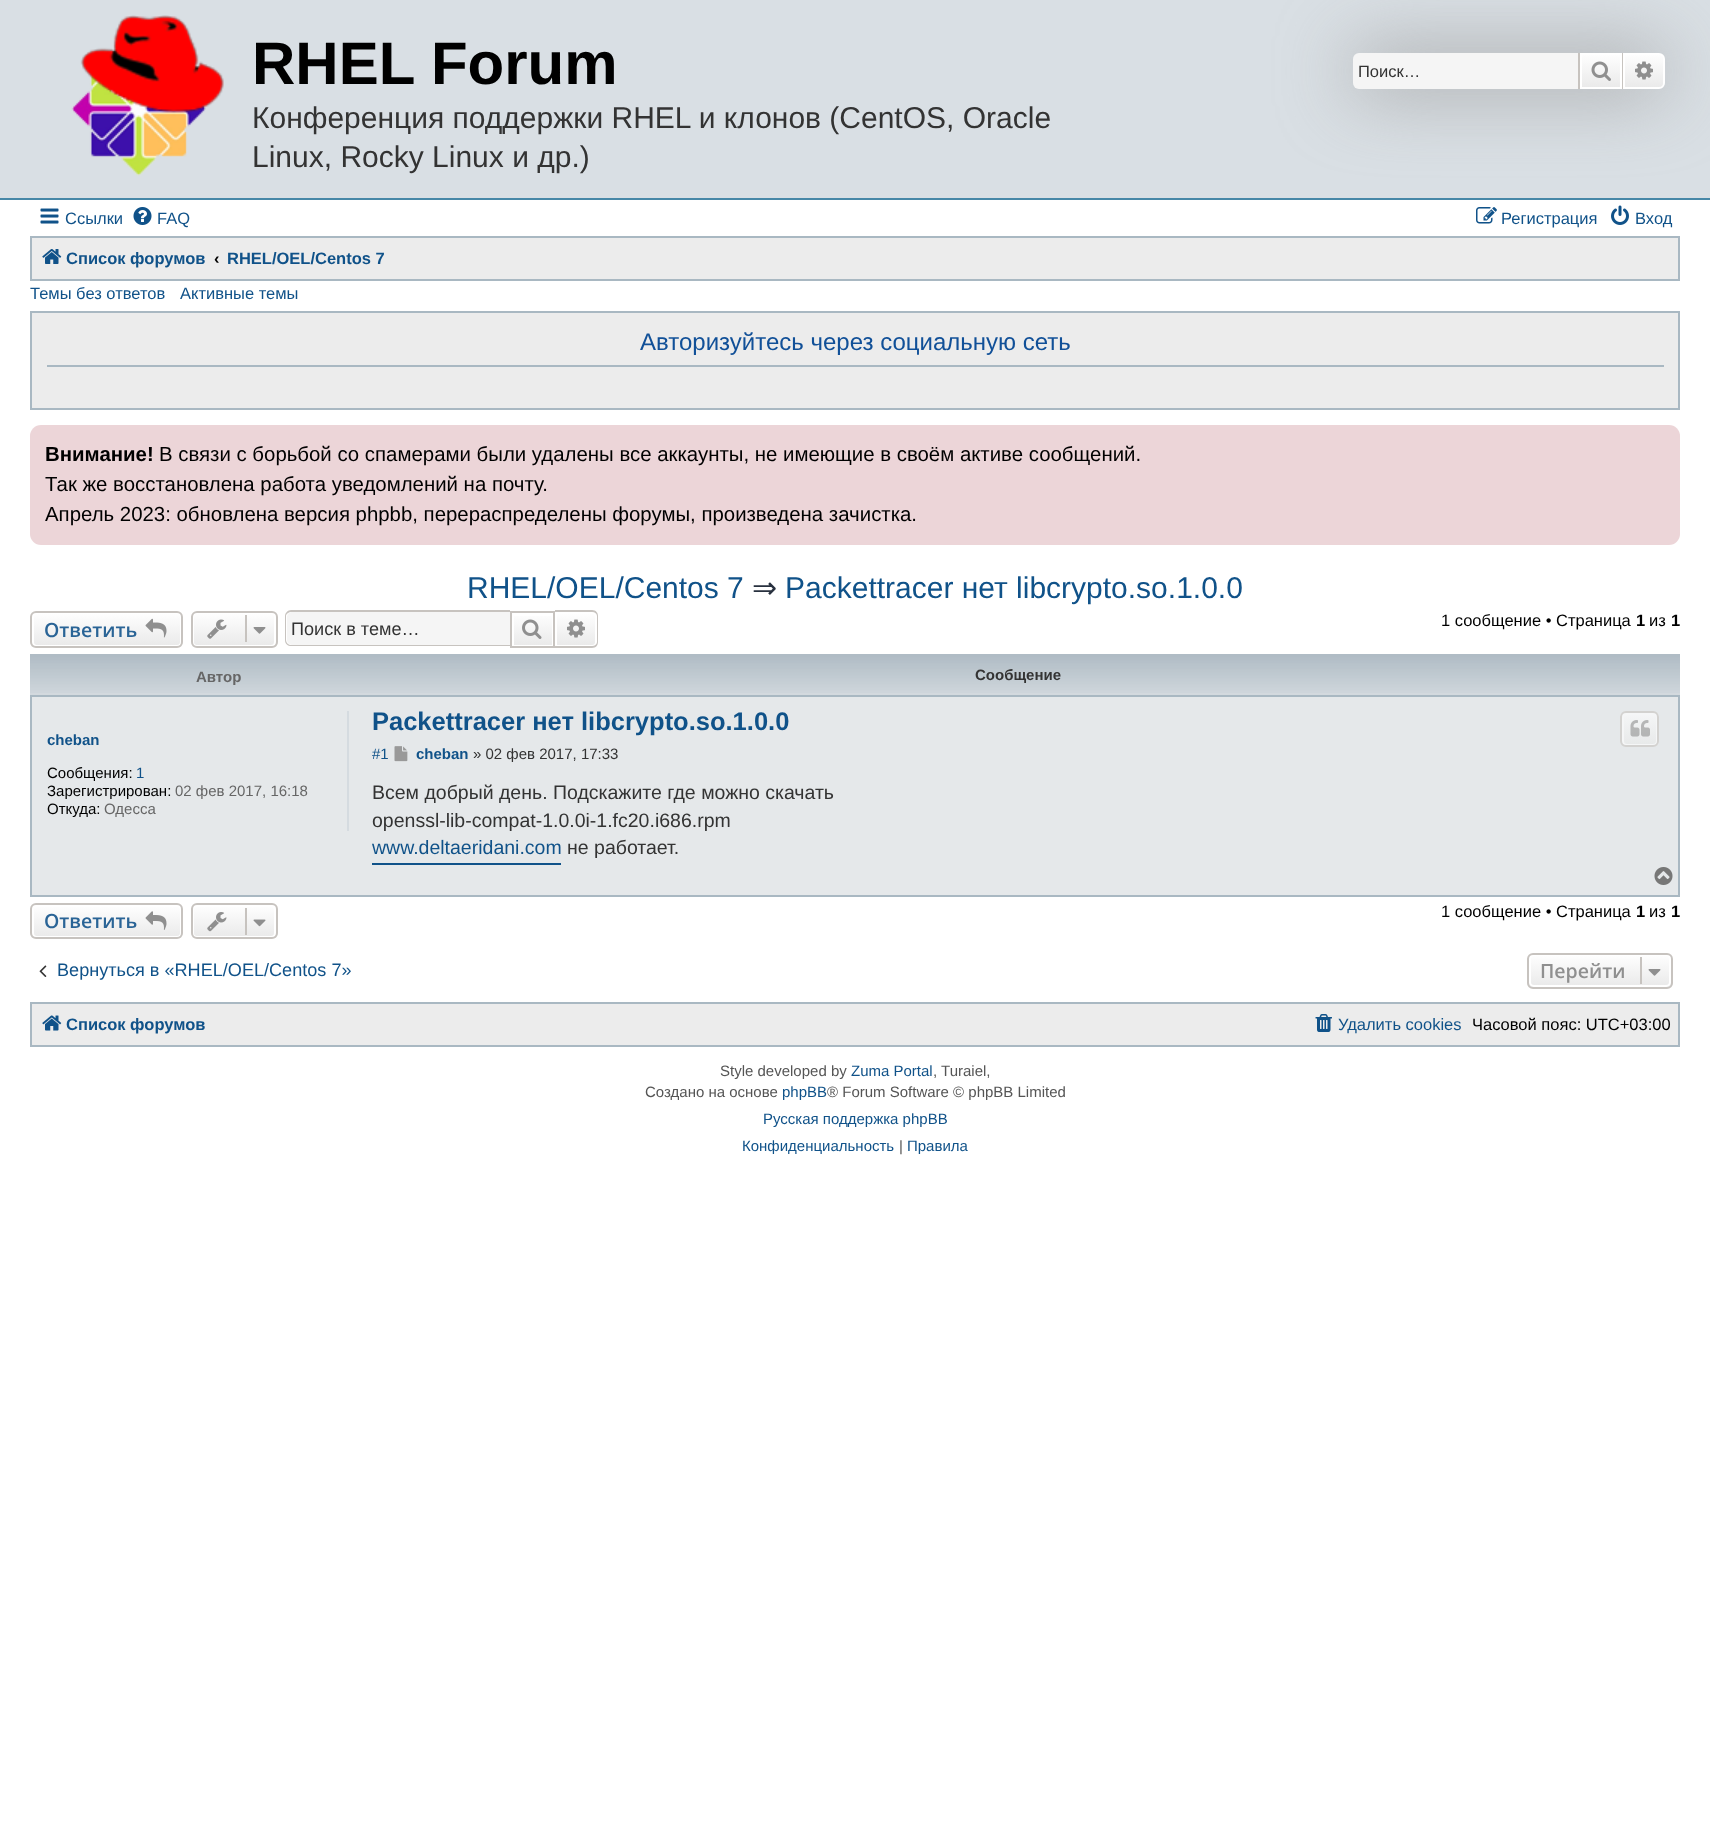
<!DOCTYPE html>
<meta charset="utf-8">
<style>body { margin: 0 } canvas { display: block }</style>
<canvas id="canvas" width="1710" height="1835"></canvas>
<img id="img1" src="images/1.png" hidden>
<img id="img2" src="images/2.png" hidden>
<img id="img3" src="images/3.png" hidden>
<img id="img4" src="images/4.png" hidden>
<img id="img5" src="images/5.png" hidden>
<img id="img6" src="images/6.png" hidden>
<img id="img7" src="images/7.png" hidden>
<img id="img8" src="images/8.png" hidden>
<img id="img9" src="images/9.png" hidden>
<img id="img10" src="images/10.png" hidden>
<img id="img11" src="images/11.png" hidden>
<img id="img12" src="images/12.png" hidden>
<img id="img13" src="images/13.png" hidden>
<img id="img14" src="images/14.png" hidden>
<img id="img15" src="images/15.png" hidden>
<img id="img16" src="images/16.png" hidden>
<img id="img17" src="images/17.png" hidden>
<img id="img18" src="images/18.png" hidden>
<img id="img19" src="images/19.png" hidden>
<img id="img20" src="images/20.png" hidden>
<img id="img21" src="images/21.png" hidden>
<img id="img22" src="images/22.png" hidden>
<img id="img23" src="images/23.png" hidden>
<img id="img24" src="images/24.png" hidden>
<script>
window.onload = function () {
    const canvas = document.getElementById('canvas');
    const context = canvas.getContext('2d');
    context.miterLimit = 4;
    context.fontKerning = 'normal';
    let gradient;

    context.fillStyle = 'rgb(255, 255, 255)';
    context.fillRect(0, 0, 1710, 1835);
    context.fillStyle = 'rgb(217, 223, 228)';
    context.fillRect(0, 0, 1710, 198);
    context.fillStyle = 'rgb(71, 135, 167)';
    context.fillRect(0, 198, 1710, 2);
    context.drawImage(document.getElementById('img1'), 71, 15, 153, 161);
    context.fillStyle = 'rgb(153, 153, 153)';
    context.filter = 'blur(37.5px)';
    context.beginPath();
    context.roundRect(1353, 53, 312, 36, 6);
    context.fill();
    context.filter = 'none';
    context.fillStyle = 'rgb(245, 245, 245)';
    context.beginPath();
    context.roundRect(1353, 53, 225, 36, [6, 0, 0, 6]);
    context.fill();
    gradient = context.createLinearGradient(1601, 53, 1601, 89);
    gradient.addColorStop(0, 'rgb(255, 255, 255)');
    gradient.addColorStop(1, 'rgb(233, 233, 233)');
    context.fillStyle = gradient;
    context.fillRect(1582, 55, 38, 32);
    context.strokeStyle = 'rgb(255, 255, 255)';
    context.lineWidth = 2;
    context.strokeRect(1581, 54, 40, 34);
    context.fillStyle = 'rgb(199, 195, 191)';
    context.fillRect(1622, 53, 1, 36);
    context.fillRect(1578, 53, 2, 36);
    context.drawImage(document.getElementById('img2'), 1591, 61, 20, 20);
    gradient = context.createLinearGradient(1644, 53, 1644, 89);
    gradient.addColorStop(0, 'rgb(255, 255, 255)');
    gradient.addColorStop(1, 'rgb(233, 233, 233)');
    context.fillStyle = gradient;
    context.beginPath();
    context.roundRect(1624, 54, 40, 34, [0, 5, 5, 0]);
    context.fill();
    context.stroke();
    context.drawImage(document.getElementById('img3'), 1635, 61, 18, 19);
    context.drawImage(document.getElementById('img4'), 40, 208, 19, 16);
    context.drawImage(document.getElementById('img5'), 133, 207, 19, 18);
    context.drawImage(document.getElementById('img6'), 1476, 207, 21, 17);
    context.drawImage(document.getElementById('img7'), 1611, 205, 18, 20);
    context.fillStyle = 'rgb(236, 236, 236)';
    context.beginPath();
    context.rect(31, 237, 1648, 43);
    context.fill();
    context.strokeStyle = 'rgb(169, 184, 194)';
    context.stroke();
    context.drawImage(document.getElementById('img8'), 42, 249, 20, 15);
    context.beginPath();
    context.rect(31, 312, 1648, 97);
    context.fill();
    context.stroke();
    context.fillStyle = 'rgb(169, 184, 194)';
    context.fillRect(47, 365, 1617, 2);
    context.fillStyle = 'rgb(236, 213, 216)';
    context.beginPath();
    context.roundRect(30, 425, 1650, 120, 11);
    context.fill();
    context.save();
    context.beginPath();
    context.roundRect(30, 611, 153, 37, 6);
    context.clip();
    gradient = context.createLinearGradient(107, 612, 107, 647);
    gradient.addColorStop(0, 'rgb(255, 255, 255)');
    gradient.addColorStop(1, 'rgb(233, 233, 233)');
    context.fillStyle = gradient;
    context.fillRect(30, 612, 153, 35);
    context.restore();
    context.beginPath();
    context.roundRect(33, 613, 148, 33, 4);
    context.strokeStyle = 'rgb(255, 255, 255)';
    context.stroke();
    context.beginPath();
    context.roundRect(31, 612, 151, 35, 5);
    context.strokeStyle = 'rgb(199, 195, 191)';
    context.stroke();
    context.drawImage(document.getElementById('img9'), 145, 618, 22, 20);
    context.save();
    context.beginPath();
    context.roundRect(191, 611, 87, 37, 6);
    context.clip();
    gradient = context.createLinearGradient(234, 612, 234, 647);
    gradient.addColorStop(0, 'rgb(255, 255, 255)');
    gradient.addColorStop(1, 'rgb(233, 233, 233)');
    context.fillStyle = gradient;
    context.fillRect(191, 612, 87, 35);
    context.restore();
    context.beginPath();
    context.roundRect(193, 613, 82, 33, 4);
    context.strokeStyle = 'rgb(255, 255, 255)';
    context.stroke();
    context.beginPath();
    context.roundRect(192, 612, 85, 35, 5);
    context.strokeStyle = 'rgb(199, 195, 191)';
    context.stroke();
    context.drawImage(document.getElementById('img10'), 207, 619, 20, 20);
    context.fillStyle = 'rgb(199, 195, 191)';
    context.fillRect(245, 615, 2, 27);
    context.drawImage(document.getElementById('img11'), 253, 627, 13, 7);
    context.fillStyle = 'rgb(245, 245, 245)';
    context.beginPath();
    context.roundRect(287, 612, 223, 33, [5, 0, 0, 5]);
    context.fill();
    context.fillStyle = 'rgb(199, 195, 191)';
    context.beginPath();
    context.moveTo(291, 610);
    context.lineTo(510, 610);
    context.lineTo(510, 646);
    context.lineTo(291, 646);
    context.bezierCurveTo(288, 646, 285, 644, 285, 640);
    context.lineTo(285, 616);
    context.bezierCurveTo(285, 613, 288, 610, 291, 610);
    context.closePath();
    context.moveTo(291, 612);
    context.lineTo(510, 612);
    context.lineTo(510, 645);
    context.lineTo(291, 645);
    context.bezierCurveTo(289, 645, 286, 643, 286, 640);
    context.lineTo(286, 616);
    context.bezierCurveTo(286, 614, 289, 612, 291, 612);
    context.closePath();
    context.fill('evenodd');
    gradient = context.createLinearGradient(533, 612, 533, 647);
    gradient.addColorStop(0, 'rgb(255, 255, 255)');
    gradient.addColorStop(1, 'rgb(233, 233, 233)');
    context.fillStyle = gradient;
    context.fillRect(514, 616, 38, 29);
    context.strokeRect(511, 612, 43, 35);
    context.drawImage(document.getElementById('img12'), 522, 619, 20, 20);
    gradient = context.createLinearGradient(576, 612, 576, 647);
    gradient.addColorStop(0, 'rgb(255, 255, 255)');
    gradient.addColorStop(1, 'rgb(233, 233, 233)');
    context.fillStyle = gradient;
    context.beginPath();
    context.roundRect(556, 613, 40, 33, [0, 4, 4, 0]);
    context.fill();
    context.strokeStyle = 'rgb(255, 255, 255)';
    context.stroke();
    context.fillStyle = 'rgb(199, 195, 191)';
    context.beginPath();
    context.moveTo(555, 610);
    context.lineTo(592, 610);
    context.bezierCurveTo(596, 610, 598, 613, 598, 616);
    context.lineTo(598, 642);
    context.bezierCurveTo(598, 645, 596, 648, 592, 648);
    context.lineTo(555, 648);
    context.closePath();
    context.moveTo(555, 612);
    context.lineTo(592, 612);
    context.bezierCurveTo(595, 612, 597, 614, 597, 616);
    context.lineTo(597, 642);
    context.bezierCurveTo(597, 644, 595, 646, 592, 646);
    context.lineTo(555, 646);
    context.closePath();
    context.fill('evenodd');
    context.drawImage(document.getElementById('img13'), 567, 619, 18, 19);
    context.fillStyle = 'rgb(211, 217, 222)';
    context.fillRect(30, 693, 1650, 2);
    context.drawImage(document.getElementById('img14'), 30, 654, 1650, 39);
    context.fillStyle = 'rgb(229, 232, 234)';
    context.beginPath();
    context.rect(31, 696, 1648, 200);
    context.fill();
    context.strokeStyle = 'rgb(169, 184, 194)';
    context.stroke();
    context.fillStyle = 'rgb(213, 219, 224)';
    context.fillRect(347, 711, 2, 120);
    context.save();
    context.beginPath();
    context.roundRect(1620, 711, 39, 36, 6);
    context.clip();
    gradient = context.createLinearGradient(1640, 713, 1640, 746);
    gradient.addColorStop(0, 'rgb(245, 246, 247)');
    gradient.addColorStop(1, 'rgb(231, 233, 233)');
    context.fillStyle = gradient;
    context.fillRect(1620, 713, 39, 33);
    context.restore();
    context.beginPath();
    context.roundRect(1623, 714, 34, 31, 4);
    context.strokeStyle = 'rgb(245, 246, 247)';
    context.stroke();
    context.beginPath();
    context.roundRect(1621, 712, 37, 34, 5);
    context.strokeStyle = 'rgb(211, 210, 208)';
    context.stroke();
    context.drawImage(document.getElementById('img15'), 1630, 720, 20, 17);
    context.drawImage(document.getElementById('img16'), 394, 746, 14, 16);
    context.fillStyle = 'rgb(16, 82, 137)';
    context.fillRect(372, 863, 189, 2);
    context.drawImage(document.getElementById('img17'), 1654, 867, 19, 18);
    context.save();
    context.beginPath();
    context.roundRect(30, 903, 153, 36, 6);
    context.clip();
    gradient = context.createLinearGradient(107, 905, 107, 938);
    gradient.addColorStop(0, 'rgb(255, 255, 255)');
    gradient.addColorStop(1, 'rgb(233, 233, 233)');
    context.fillStyle = gradient;
    context.fillRect(30, 905, 153, 33);
    context.restore();
    context.beginPath();
    context.roundRect(33, 906, 148, 31, 4);
    context.strokeStyle = 'rgb(255, 255, 255)';
    context.stroke();
    context.beginPath();
    context.roundRect(31, 904, 151, 34, 5);
    context.strokeStyle = 'rgb(199, 195, 191)';
    context.stroke();
    context.drawImage(document.getElementById('img18'), 145, 911, 22, 19);
    context.save();
    context.beginPath();
    context.roundRect(191, 903, 87, 36, 6);
    context.clip();
    gradient = context.createLinearGradient(234, 905, 234, 938);
    gradient.addColorStop(0, 'rgb(255, 255, 255)');
    gradient.addColorStop(1, 'rgb(233, 233, 233)');
    context.fillStyle = gradient;
    context.fillRect(191, 905, 87, 33);
    context.restore();
    context.beginPath();
    context.roundRect(193, 906, 82, 31, 4);
    context.strokeStyle = 'rgb(255, 255, 255)';
    context.stroke();
    context.beginPath();
    context.roundRect(192, 904, 85, 34, 5);
    context.strokeStyle = 'rgb(199, 195, 191)';
    context.stroke();
    context.drawImage(document.getElementById('img19'), 207, 912, 20, 20);
    context.fillStyle = 'rgb(199, 195, 191)';
    context.fillRect(245, 908, 2, 27);
    context.drawImage(document.getElementById('img20'), 253, 919, 13, 8);
    context.drawImage(document.getElementById('img21'), 39, 965, 8, 12);
    context.save();
    context.beginPath();
    context.roundRect(1527, 953, 146, 36, 6);
    context.clip();
    gradient = context.createLinearGradient(1600, 954, 1600, 987);
    gradient.addColorStop(0, 'rgb(255, 255, 255)');
    gradient.addColorStop(1, 'rgb(233, 233, 233)');
    context.fillStyle = gradient;
    context.fillRect(1527, 954, 146, 33);
    context.restore();
    context.beginPath();
    context.roundRect(1530, 955, 140, 31, 4);
    context.strokeStyle = 'rgb(255, 255, 255)';
    context.stroke();
    context.beginPath();
    context.roundRect(1528, 954, 144, 34, 5);
    context.strokeStyle = 'rgb(199, 195, 191)';
    context.stroke();
    context.fillRect(1640, 957, 2, 27);
    context.drawImage(document.getElementById('img22'), 1648, 969, 13, 7);
    context.fillStyle = 'rgb(236, 236, 236)';
    context.beginPath();
    context.rect(31, 1003, 1648, 43);
    context.fill();
    context.strokeStyle = 'rgb(169, 184, 194)';
    context.stroke();
    context.drawImage(document.getElementById('img23'), 42, 1015, 20, 16);
    context.drawImage(document.getElementById('img24'), 1315, 1014, 17, 18);
    context.font = 'bold 60px Liberation Sans';
    context.fillStyle = 'rgb(0, 0, 0)';
    context.fillText('RHEL Forum', 252, 84);
    context.font = '30px Liberation Sans';
    context.fillStyle = 'rgb(51, 51, 51)';
    context.fillText('Конференция поддержки RHEL и клонов (CentOS, Oracle', 252, 128);
    context.fillText('Linux, Rocky Linux и др.)', 252, 167);
    context.font = '16.5px Liberation Sans';
    context.fillText('Поиск…', 1358, 77);
    context.fillStyle = 'rgb(16, 82, 137)';
    context.fillText('Ссылки', 65, 224);
    context.fillText('FAQ', 157, 224);
    context.fillText('Регистрация', 1501, 224);
    context.fillText('Вход', 1635, 224);
    context.font = 'bold 16.5px Liberation Sans';
    context.fillText('Список форумов', 66, 264);
    context.fillStyle = 'rgb(0, 0, 0)';
    context.fillText('‹', 214, 264);
    context.fillStyle = 'rgb(16, 82, 137)';
    context.fillText('RHEL/OEL/Centos 7', 227, 264);
    context.font = '16.5px Liberation Sans';
    context.fillText('Темы без ответов', 30, 299);
    context.fillText('Активные темы', 180, 299);
    context.font = '24px Liberation Sans';
    context.fillStyle = 'rgb(17, 80, 152)';
    context.fillText('Авторизуйтесь через социальную сеть', 640, 350);
    context.font = 'bold 20.4px Liberation Sans';
    context.fillStyle = 'rgb(0, 0, 0)';
    context.fillText('Внимание!', 45, 461);
    context.font = '20.4px Liberation Sans';
    context.fillText('В связи с борьбой со спамерами были удалены все аккаунты, не имеющие в своём активе сообщений.', 159, 461);
    context.fillText('Так же восстановлена работа уведомлений на почту.', 45, 491);
    context.fillText('Апрель 2023: обновлена версия phpbb, перераспределены форумы, произведена зачистка.', 45, 521);
    context.font = '30px Liberation Sans';
    context.fillStyle = 'rgb(16, 82, 137)';
    context.fillText('RHEL/OEL/Centos 7', 467, 598);
    context.font = '30px DejaVu Sans';
    context.fillStyle = 'rgb(40, 49, 63)';
    context.fillText('⇒', 752, 598);
    context.font = '30px Liberation Sans';
    context.fillStyle = 'rgb(16, 82, 137)';
    context.fillText('Packettracer нет libcrypto.so.1.0.0', 785, 598);
    context.font = '600 19.5px Open Sans';
    context.fillStyle = 'rgb(42, 100, 150)';
    context.fillText('Ответить', 44, 637);
    context.font = '18.1px Liberation Sans';
    context.fillStyle = 'rgb(51, 51, 51)';
    context.fillText('Поиск в теме…', 291, 635);
    context.font = '16.5px Liberation Sans';
    context.fillStyle = 'rgb(0, 0, 0)';
    context.fillText('1 сообщение • Страница', 1441, 626);
    context.font = 'bold 16.5px Liberation Sans';
    context.fillText('1', 1636, 626);
    context.font = '16.5px Liberation Sans';
    context.fillText('из', 1649, 626);
    context.font = 'bold 16.5px Liberation Sans';
    context.fillText('1', 1671, 626);
    context.font = 'bold 15px Liberation Sans';
    context.fillStyle = 'rgb(102, 102, 102)';
    context.fillText('Автор', 196, 682);
    context.fillStyle = 'rgb(51, 51, 51)';
    context.fillText('Сообщение', 975, 680);
    context.fillStyle = 'rgb(16, 82, 137)';
    context.fillText('cheban', 47, 745);
    context.font = '15px Liberation Sans';
    context.fillStyle = 'rgb(0, 0, 0)';
    context.fillText('Сообщения:', 47, 778);
    context.fillStyle = 'rgb(16, 82, 137)';
    context.fillText('1', 136, 778);
    context.fillStyle = 'rgb(0, 0, 0)';
    context.fillText('Зарегистрирован:', 47, 796);
    context.fillStyle = 'rgb(102, 102, 102)';
    context.fillText('02 фев 2017, 16:18', 175, 796);
    context.fillStyle = 'rgb(0, 0, 0)';
    context.fillText('Откуда:', 47, 814);
    context.fillStyle = 'rgb(102, 102, 102)';
    context.fillText('Одесса', 104, 814);
    context.font = 'bold 25.5px Liberation Sans';
    context.fillStyle = 'rgb(16, 82, 137)';
    context.fillText('Packettracer нет libcrypto.so.1.0.0', 372, 730);
    context.font = '15px Liberation Sans';
    context.fillText('#1', 372, 759);
    context.font = 'bold 15px Liberation Sans';
    context.fillText('cheban', 416, 759);
    context.font = '15px Liberation Sans';
    context.fillStyle = 'rgb(51, 51, 51)';
    context.fillText('» 02 фев 2017, 17:33', 473, 759);
    context.font = '19.5px Liberation Sans';
    context.fillText('Всем добрый день. Подскажите где можно скачать', 372, 799);
    context.fillText('openssl-lib-compat-1.0.0i-1.fc20.i686.rpm', 372, 827);
    context.fillStyle = 'rgb(16, 82, 137)';
    context.fillText('www.deltaeridani.com', 372, 854);
    context.fillStyle = 'rgb(51, 51, 51)';
    context.fillText('не работает.', 567, 854);
    context.font = '600 19.5px Open Sans';
    context.fillStyle = 'rgb(42, 100, 150)';
    context.fillText('Ответить', 44, 928);
    context.font = '16.5px Liberation Sans';
    context.fillStyle = 'rgb(0, 0, 0)';
    context.fillText('1 сообщение • Страница', 1441, 917);
    context.font = 'bold 16.5px Liberation Sans';
    context.fillText('1', 1636, 917);
    context.font = '16.5px Liberation Sans';
    context.fillText('из', 1649, 917);
    context.font = 'bold 16.5px Liberation Sans';
    context.fillText('1', 1671, 917);
    context.font = '18.1px Liberation Sans';
    context.fillStyle = 'rgb(16, 82, 137)';
    context.fillText('Вернуться в «RHEL/OEL/Centos 7»', 57, 976);
    context.font = '600 19.5px Open Sans';
    context.fillStyle = 'rgb(143, 143, 143)';
    context.fillText('Перейти', 1540, 978);
    context.font = 'bold 16.5px Liberation Sans';
    context.fillStyle = 'rgb(16, 82, 137)';
    context.fillText('Список форумов', 66, 1030);
    context.font = '16.5px Liberation Sans';
    context.fillText('Удалить cookies', 1338, 1030);
    context.fillStyle = 'rgb(0, 0, 0)';
    context.fillText('Часовой пояс: UTC+03:00', 1472, 1030);
    context.font = '15px Liberation Sans';
    context.fillStyle = 'rgb(85, 85, 85)';
    context.fillText('Style developed by', 720, 1076);
    context.fillStyle = 'rgb(16, 82, 137)';
    context.fillText('Zuma Portal', 851, 1076);
    context.fillStyle = 'rgb(85, 85, 85)';
    context.fillText(', Turaiel,', 933, 1076);
    context.fillText('Создано на основе', 645, 1097);
    context.fillStyle = 'rgb(16, 82, 137)';
    context.fillText('phpBB', 782, 1097);
    context.fillStyle = 'rgb(85, 85, 85)';
    context.fillText('® Forum Software © phpBB Limited', 827, 1097);
    context.fillStyle = 'rgb(16, 82, 137)';
    context.fillText('Русская поддержка phpBB', 763, 1124);
    context.fillText('Конфиденциальность', 742, 1151);
    context.fillStyle = 'rgb(85, 85, 85)';
    context.fillText('|', 899, 1151);
    context.fillStyle = 'rgb(16, 82, 137)';
    context.fillText('Правила', 907, 1151);
};
</script>
